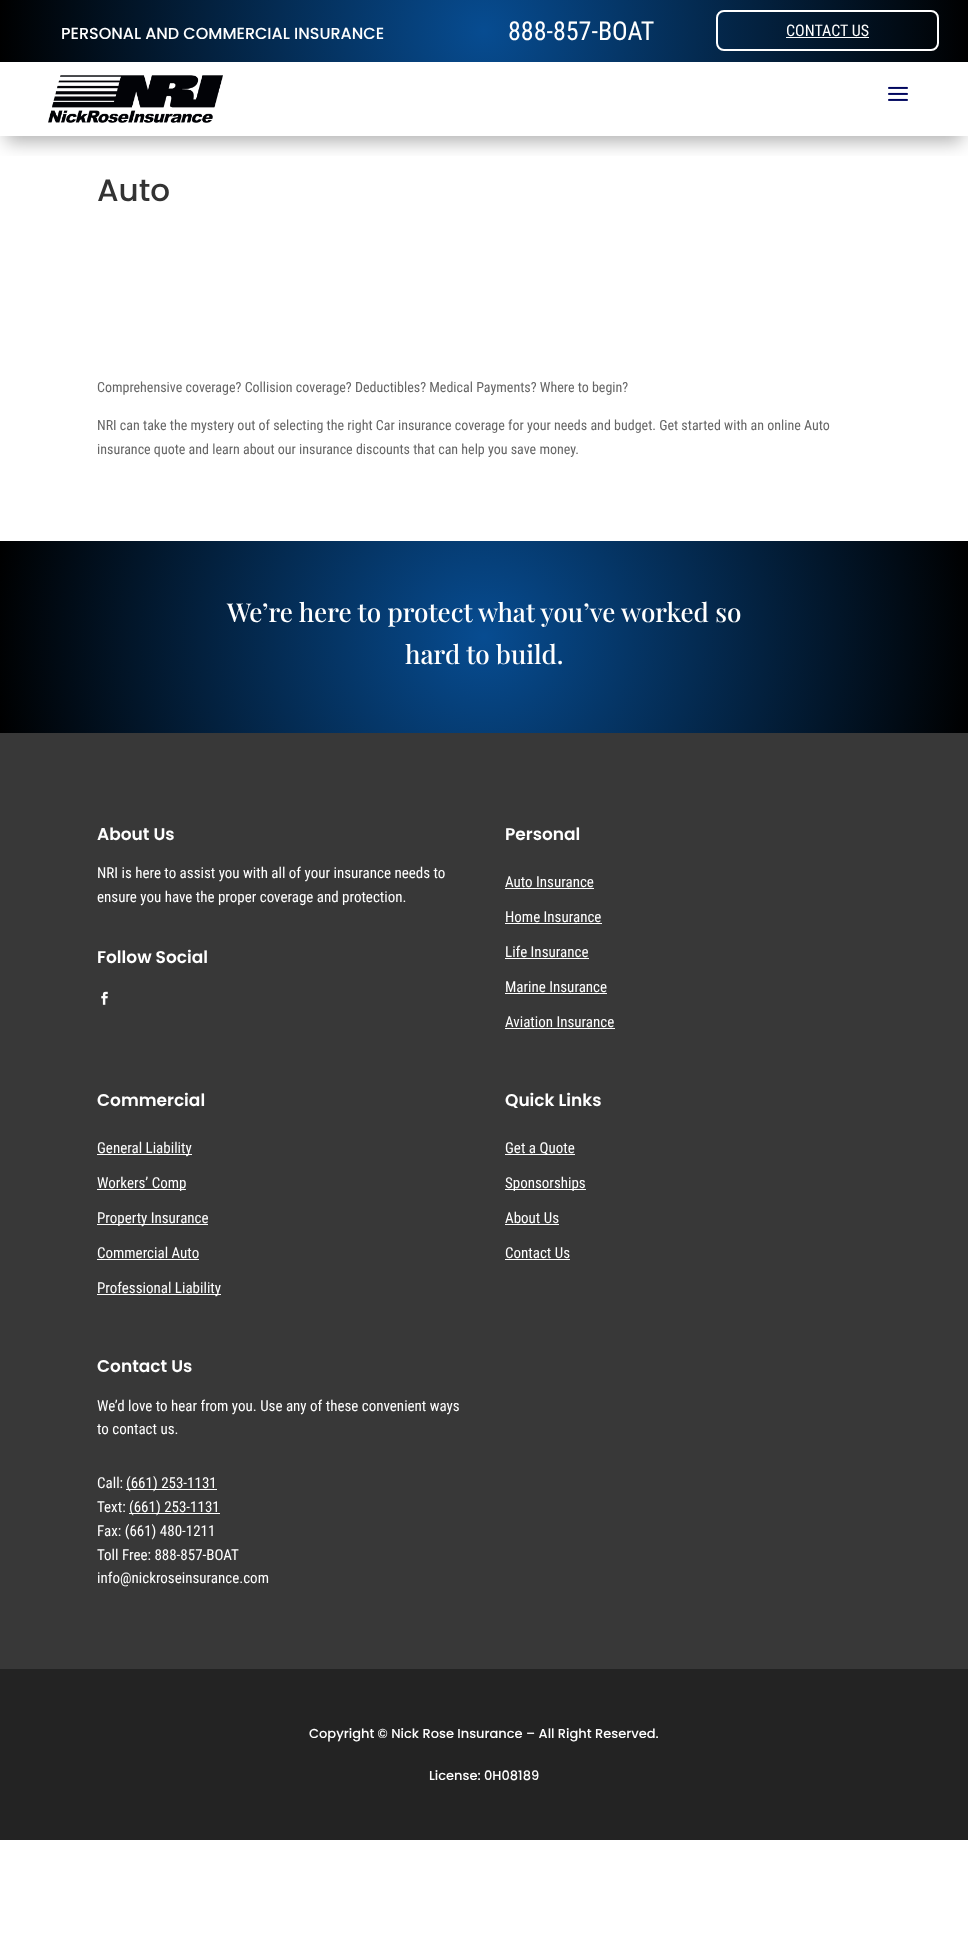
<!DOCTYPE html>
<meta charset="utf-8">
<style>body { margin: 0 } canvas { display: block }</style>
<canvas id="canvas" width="968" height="1945"></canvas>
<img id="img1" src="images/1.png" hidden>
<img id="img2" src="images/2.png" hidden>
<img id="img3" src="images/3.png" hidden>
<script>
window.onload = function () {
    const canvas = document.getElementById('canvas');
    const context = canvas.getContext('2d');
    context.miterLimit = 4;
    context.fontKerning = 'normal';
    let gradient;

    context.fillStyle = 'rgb(255, 255, 255)';
    context.fillRect(0, 0, 968, 1945);
    gradient = context.createRadialGradient(484, 31, 0, 484, 31, 485);
    gradient.addColorStop(0, 'rgb(7, 76, 145)');
    gradient.addColorStop(1, 'rgb(0, 0, 0)');
    context.fillStyle = gradient;
    context.fillRect(0, 0, 968, 62);
    context.beginPath();
    context.roundRect(717, 11, 221, 39, 7);
    context.strokeStyle = 'rgb(255, 255, 255)';
    context.lineWidth = 2;
    context.stroke();
    context.fillStyle = 'rgb(255, 255, 255)';
    context.fillRect(786, 37, 83, 1);
    context.save();
    context.beginPath();
    context.rect(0, 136, 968, 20);
    context.clip();
    context.fillStyle = 'rgba(0, 0, 0, 0.3)';
    context.filter = 'blur(9px)';
    context.beginPath();
    context.rect(6, 80, 956, 62);
    context.fill();
    context.filter = 'none';
    context.restore();
    context.drawImage(document.getElementById('img1'), 48, 75, 175, 48);
    context.drawImage(document.getElementById('img2'), 888, 86, 20, 15);
    gradient = context.createRadialGradient(484, 637, 0, 484, 637, 493);
    gradient.addColorStop(0, 'rgb(7, 76, 145)');
    gradient.addColorStop(1, 'rgb(0, 0, 0)');
    context.fillStyle = gradient;
    context.fillRect(0, 541, 968, 192);
    context.fillStyle = 'rgb(56, 56, 56)';
    context.fillRect(0, 733, 968, 936);
    context.drawImage(document.getElementById('img3'), 101, 991, 7, 14);
    context.fillStyle = 'rgb(255, 255, 255)';
    context.fillRect(505, 888, 89, 1);
    context.fillRect(505, 923, 97, 1);
    context.fillRect(505, 958, 84, 1);
    context.fillRect(505, 993, 102, 1);
    context.fillRect(505, 1028, 110, 1);
    context.fillRect(97, 1154, 95, 1);
    context.fillRect(97, 1189, 89, 1);
    context.fillRect(97, 1224, 111, 1);
    context.fillRect(97, 1259, 102, 1);
    context.fillRect(97, 1294, 124, 1);
    context.fillRect(505, 1154, 70, 1);
    context.fillRect(505, 1189, 81, 1);
    context.fillRect(505, 1224, 54, 1);
    context.fillRect(505, 1259, 65, 1);
    context.fillRect(126, 1489, 91, 1);
    context.fillRect(129, 1513, 91, 1);
    context.fillStyle = 'rgb(35, 35, 35)';
    context.fillRect(0, 1669, 968, 171);
    context.font = '500 16px Poppins';
    context.fillStyle = 'rgb(255, 255, 255)';
    context.fillText('PERSONAL AND COMMERCIAL INSURANCE', 61, 39);
    context.font = '26px Roboto Condensed';
    context.fillText('888-857-BOAT', 508, 40);
    context.font = '16px Roboto Condensed';
    context.fillText('CONTACT US', 786, 36);
    context.font = '500 31px Poppins';
    context.fillStyle = 'rgb(51, 51, 51)';
    context.fillText('Auto', 97, 201);
    context.font = '14px Roboto Condensed';
    context.fillStyle = 'rgb(102, 102, 102)';
    context.fillText('Comprehensive coverage? Collision coverage? Deductibles? Medical Payments? Where to begin?', 97, 392);
    context.fillText('NRI can take the mystery out of selecting the right Car insurance coverage for your needs and budget. Get started with an online Auto', 97, 430);
    context.fillText('insurance quote and learn about our insurance discounts that can help you save money.', 97, 454);
    context.font = '500 26px Playfair Display';
    context.fillStyle = 'rgb(255, 255, 255)';
    context.fillText('We’re here to protect what you’ve worked so', 227, 622);
    context.fillText('hard to build.', 405, 664);
    context.font = '600 17px Poppins';
    context.fillText('About Us', 97, 840);
    context.font = '15px Roboto Condensed';
    context.fillText('NRI is here to assist you with all of your insurance needs to', 97, 878);
    context.fillText('ensure you have the proper coverage and protection.', 97, 902);
    context.font = '600 17px Poppins';
    context.fillText('Follow Social', 97, 963);
    context.fillText('Personal', 505, 840);
    context.font = '15px Roboto Condensed';
    context.fillText('Auto Insurance', 505, 887);
    context.fillText('Home Insurance', 505, 922);
    context.fillText('Life Insurance', 505, 957);
    context.fillText('Marine Insurance', 505, 992);
    context.fillText('Aviation Insurance', 505, 1027);
    context.font = '600 17px Poppins';
    context.fillText('Commercial', 97, 1106);
    context.font = '15px Roboto Condensed';
    context.fillText('General Liability', 97, 1153);
    context.fillText('Workers’ Comp', 97, 1188);
    context.fillText('Property Insurance', 97, 1223);
    context.fillText('Commercial Auto', 97, 1258);
    context.fillText('Professional Liability', 97, 1293);
    context.font = '600 17px Poppins';
    context.fillText('Quick Links', 505, 1106);
    context.font = '15px Roboto Condensed';
    context.fillText('Get a Quote', 505, 1153);
    context.fillText('Sponsorships', 505, 1188);
    context.fillText('About Us', 505, 1223);
    context.fillText('Contact Us', 505, 1258);
    context.font = '600 17px Poppins';
    context.fillText('Contact Us', 97, 1372);
    context.font = '15px Roboto Condensed';
    context.fillText('We’d love to hear from you. Use any of these convenient ways', 97, 1411);
    context.fillText('to contact us.', 97, 1434);
    context.fillText('Call:', 97, 1488);
    context.fillText('(661) 253-1131', 126, 1488);
    context.fillText('Text:', 97, 1512);
    context.fillText('(661) 253-1131', 129, 1512);
    context.fillText('Fax: (661) 480-1211', 97, 1536);
    context.fillText('Toll Free: 888-857-BOAT', 97, 1560);
    context.fillText('info@nickroseinsurance.com', 97, 1583);
    context.font = '500 13px Poppins';
    context.fillText('Copyright © Nick Rose Insurance – All Right Reserved.', 309, 1738);
    context.fillText('License: 0H08189', 429, 1780);
};
</script>
